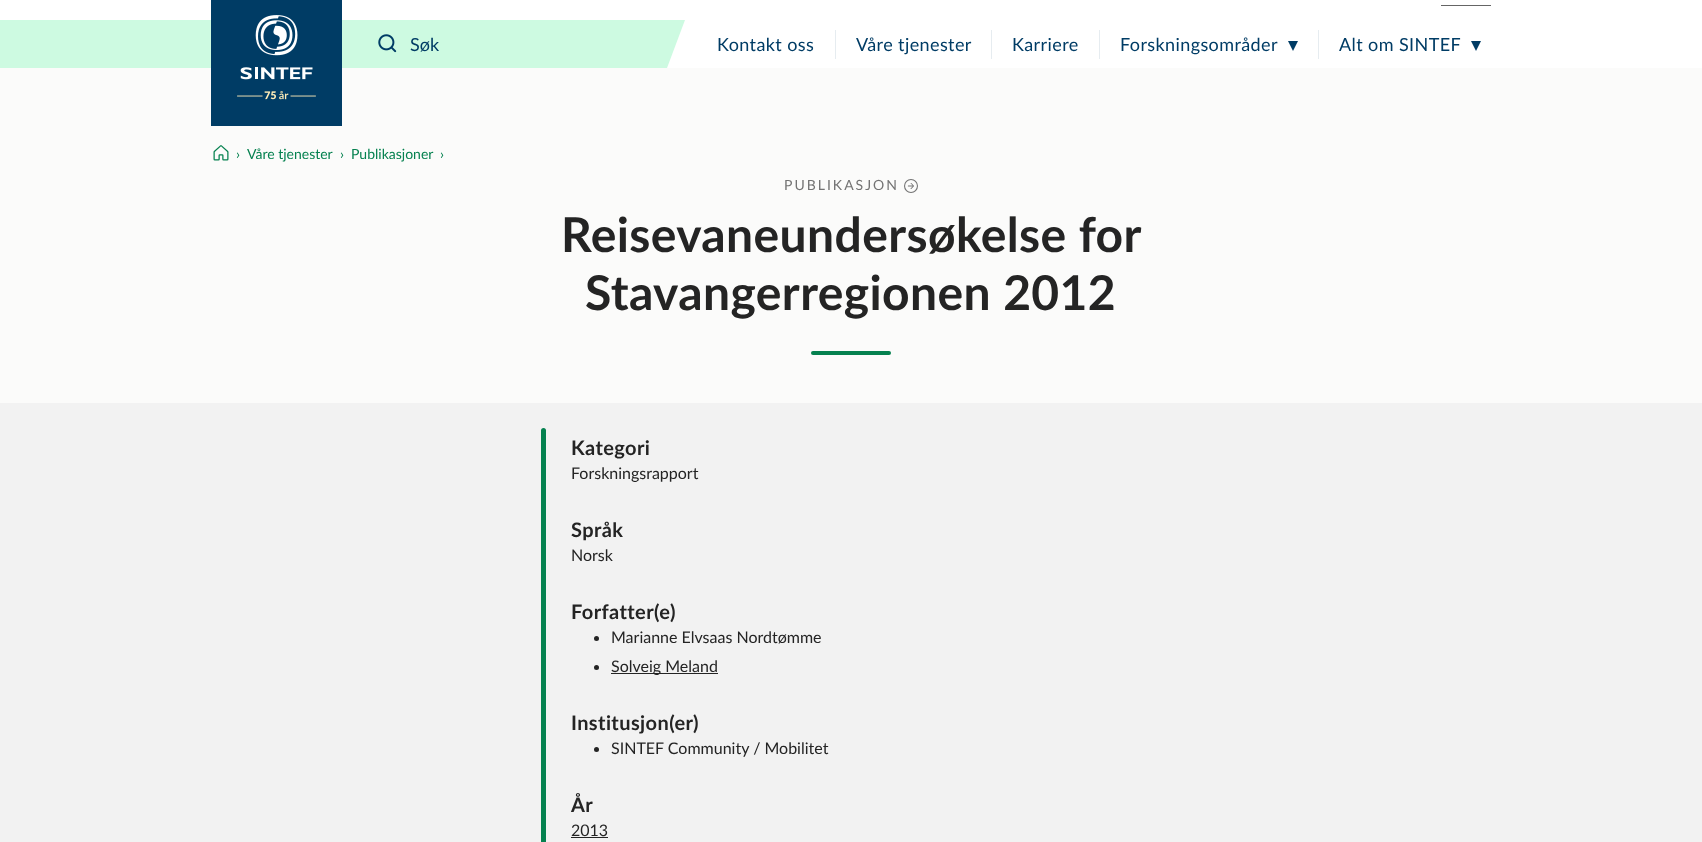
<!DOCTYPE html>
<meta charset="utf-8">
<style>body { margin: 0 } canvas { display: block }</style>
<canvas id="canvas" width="1702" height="842"></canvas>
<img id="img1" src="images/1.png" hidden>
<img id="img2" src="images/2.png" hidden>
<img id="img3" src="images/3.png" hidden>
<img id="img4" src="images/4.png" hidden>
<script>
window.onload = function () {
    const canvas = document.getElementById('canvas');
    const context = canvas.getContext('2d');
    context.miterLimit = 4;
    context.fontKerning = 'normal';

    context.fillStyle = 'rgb(251, 251, 250)';
    context.fillRect(0, 0, 1702, 842);
    context.fillStyle = 'rgb(255, 255, 255)';
    context.fillRect(0, 0, 1702, 68);
    context.fillStyle = 'rgb(0, 60, 101)';
    context.fillRect(211, 0, 131, 126);
    context.drawImage(document.getElementById('img1'), 237, 15, 79, 85);
    context.fillStyle = 'rgb(101, 101, 101)';
    context.fillRect(1441, 5, 50, 1);
    context.fillStyle = 'rgb(205, 250, 225)';
    context.fillRect(0, 20, 211, 48);
    context.beginPath();
    context.moveTo(359, 20);
    context.lineTo(685, 20);
    context.lineTo(667, 68);
    context.lineTo(342, 68);
    context.closePath();
    context.fill();
    context.drawImage(document.getElementById('img2'), 378, 34, 19, 19);
    context.fillRect(342, 20, 17, 48);
    context.fillStyle = 'rgb(230, 236, 240)';
    context.fillRect(835, 30, 1, 29);
    context.fillRect(991, 30, 1, 29);
    context.fillRect(1099, 30, 1, 29);
    context.fillStyle = 'rgb(0, 60, 101)';
    context.beginPath();
    context.moveTo(1288, 41);
    context.lineTo(1298, 41);
    context.lineTo(1293, 51);
    context.closePath();
    context.fill();
    context.fillStyle = 'rgb(230, 236, 240)';
    context.fillRect(1318, 30, 1, 29);
    context.fillStyle = 'rgb(0, 60, 101)';
    context.beginPath();
    context.moveTo(1471, 41);
    context.lineTo(1481, 41);
    context.lineTo(1476, 51);
    context.closePath();
    context.fill();
    context.drawImage(document.getElementById('img3'), 213, 145, 16, 16);
    context.drawImage(document.getElementById('img4'), 904, 179, 14, 14);
    context.fillStyle = 'rgb(5, 129, 79)';
    context.beginPath();
    context.roundRect(811, 351, 80, 4, 2);
    context.fill();
    context.fillStyle = 'rgb(242, 242, 242)';
    context.fillRect(0, 403, 1702, 439);
    context.fillStyle = 'rgb(5, 129, 79)';
    context.beginPath();
    context.roundRect(541, 428, 5, 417, 2.5);
    context.fill();
    context.fillStyle = 'rgb(36, 36, 36)';
    context.beginPath();
    context.arc(596.5, 638.5, 2.5, 0, 2 * Math.PI);
    context.fill();
    context.beginPath();
    context.arc(596.5, 667.5, 2.5, 0, 2 * Math.PI);
    context.fill();
    context.fillRect(611, 673, 107, 1);
    context.beginPath();
    context.arc(596.5, 749.5, 2.5, 0, 2 * Math.PI);
    context.fill();
    context.fillRect(571, 837, 37, 1);
    context.font = '18px Lato';
    context.fillStyle = 'rgb(0, 60, 101)';
    context.fillText('Søk', 410, 51);
    context.letterSpacing = '0.4px';
    context.fillText('Kontakt oss', 717, 51);
    context.fillText('Våre tjenester', 856, 51);
    context.fillText('Karriere', 1012, 51);
    context.fillText('Forskningsområder', 1120, 51);
    context.fillText('Alt om SINTEF', 1339, 51);
    context.letterSpacing = '0px';
    context.font = '14px Lato';
    context.fillStyle = 'rgb(5, 129, 79)';
    context.fillText('›', 236, 159);
    context.fillText('Våre tjenester', 247, 159);
    context.fillText('›', 340, 159);
    context.fillText('Publikasjoner', 351, 159);
    context.fillText('›', 440, 159);
    context.letterSpacing = '2px';
    context.fillStyle = 'rgb(115, 115, 115)';
    context.fillText('PUBLIKASJON', 784, 190);
    context.letterSpacing = '0.4px';
    context.font = 'bold 48px Lato';
    context.fillStyle = 'rgb(36, 36, 36)';
    context.fillText('Reisevaneundersøkelse for', 561, 252);
    context.fillText('Stavangerregionen 2012', 585, 310);
    context.font = 'bold 20px Lato';
    context.fillText('Kategori', 571, 455);
    context.letterSpacing = '0px';
    context.font = '16px Lato';
    context.fillText('Forskningsrapport', 571, 479);
    context.letterSpacing = '0.4px';
    context.font = 'bold 20px Lato';
    context.fillText('Språk', 571, 537);
    context.letterSpacing = '0px';
    context.font = '16px Lato';
    context.fillText('Norsk', 571, 561);
    context.letterSpacing = '0.4px';
    context.font = 'bold 20px Lato';
    context.fillText('Forfatter(e)', 571, 619);
    context.letterSpacing = '0px';
    context.font = '16px Lato';
    context.fillText('Marianne Elvsaas Nordtømme', 611, 643);
    context.fillText('Solveig Meland', 611, 672);
    context.letterSpacing = '0.4px';
    context.font = 'bold 20px Lato';
    context.fillText('Institusjon(er)', 571, 730);
    context.letterSpacing = '0px';
    context.font = '16px Lato';
    context.fillText('SINTEF Community / Mobilitet', 611, 754);
    context.letterSpacing = '0.4px';
    context.font = 'bold 20px Lato';
    context.fillText('År', 571, 812);
    context.letterSpacing = '0px';
    context.font = '16px Lato';
    context.fillText('2013', 571, 836);
};
</script>
